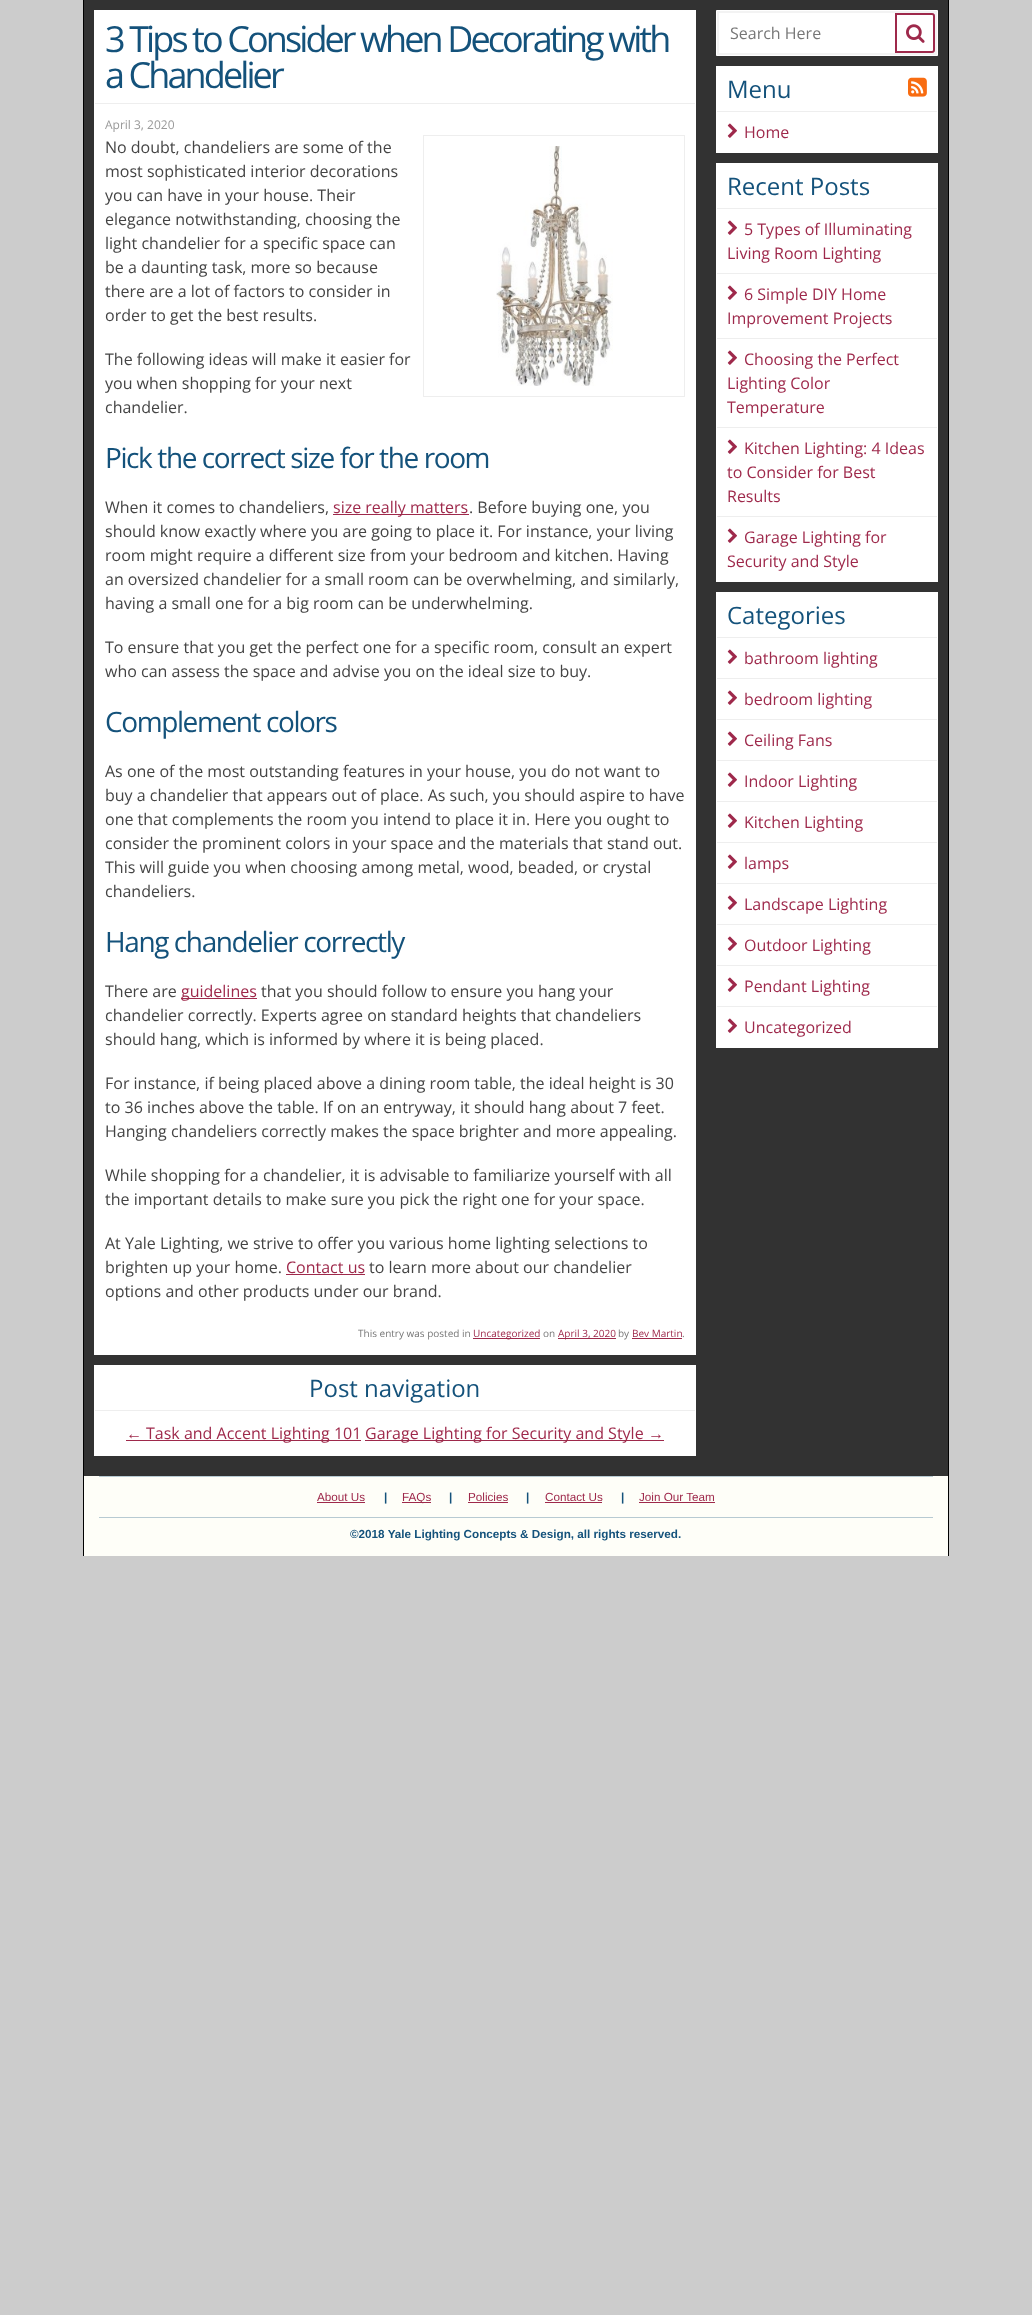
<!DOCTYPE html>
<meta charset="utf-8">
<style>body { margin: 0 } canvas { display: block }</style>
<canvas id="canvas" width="1032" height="2315"></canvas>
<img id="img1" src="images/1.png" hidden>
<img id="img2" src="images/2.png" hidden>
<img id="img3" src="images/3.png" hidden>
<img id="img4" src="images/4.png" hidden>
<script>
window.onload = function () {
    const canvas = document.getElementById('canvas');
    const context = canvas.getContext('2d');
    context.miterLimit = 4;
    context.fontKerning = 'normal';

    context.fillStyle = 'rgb(204, 204, 204)';
    context.fillRect(0, 0, 1032, 2315);
    context.fillStyle = 'rgb(254, 254, 248)';
    context.fillRect(84, 1476, 864, 80);
    context.fillStyle = 'rgb(0, 0, 0)';
    context.fillRect(948, 0, 1, 1556);
    context.fillRect(83, 0, 1, 1556);
    context.fillStyle = 'rgb(50, 50, 50)';
    context.fillRect(84, 0, 864, 1476);
    context.fillStyle = 'rgb(255, 255, 255)';
    context.fillRect(94, 10, 602, 1345);
    context.fillStyle = 'rgb(238, 238, 238)';
    context.fillRect(95, 103, 600, 1);
    context.strokeStyle = 'rgb(238, 238, 238)';
    context.strokeRect(423.5, 135.5, 261, 261);
    context.drawImage(document.getElementById('img1'), 496, 146, 117, 240);
    context.fillStyle = 'rgb(158, 41, 75)';
    context.fillRect(333, 514, 136, 1);
    context.fillRect(181, 998, 76, 1);
    context.fillRect(286, 1274, 79, 1);
    context.fillRect(473, 1338, 67, 1);
    context.fillRect(558, 1338, 58, 1);
    context.fillRect(632, 1338, 50, 1);
    context.fillStyle = 'rgb(255, 255, 255)';
    context.fillRect(94, 1365, 602, 91);
    context.fillStyle = 'rgb(238, 238, 238)';
    context.fillRect(95, 1410, 600, 1);
    context.fillStyle = 'rgb(158, 41, 75)';
    context.fillRect(126, 1440, 235, 1);
    context.fillRect(365, 1440, 299, 1);
    context.fillStyle = 'rgb(243, 243, 243)';
    context.beginPath();
    context.rect(716.5, 10.5, 221, 45);
    context.fill();
    context.strokeStyle = 'rgb(255, 255, 255)';
    context.stroke();
    context.fillStyle = 'rgb(255, 255, 255)';
    context.fillRect(719, 13, 216, 40);
    context.beginPath();
    context.roundRect(896, 14, 38, 38, [0, 2, 2, 0]);
    context.strokeStyle = 'rgb(158, 41, 75)';
    context.lineWidth = 2;
    context.stroke();
    context.drawImage(document.getElementById('img2'), 906, 24, 19, 19);
    context.fillRect(716, 66, 222, 87);
    context.fillStyle = 'rgb(238, 238, 238)';
    context.fillRect(717, 111, 220, 1);
    context.drawImage(document.getElementById('img3'), 908, 77, 19, 20);
    context.drawImage(document.getElementById('img4'), 727, 123, 10, 15);
    context.fillStyle = 'rgb(255, 255, 255)';
    context.fillRect(716, 163, 222, 419);
    context.fillStyle = 'rgb(238, 238, 238)';
    context.fillRect(717, 208, 220, 1);
    context.drawImage(document.getElementById('img4'), 727, 220, 10, 15);
    context.fillRect(717, 273, 220, 1);
    context.drawImage(document.getElementById('img4'), 727, 285, 10, 15);
    context.fillRect(717, 338, 220, 1);
    context.drawImage(document.getElementById('img4'), 727, 350, 10, 15);
    context.fillRect(717, 427, 220, 1);
    context.drawImage(document.getElementById('img4'), 727, 439, 10, 15);
    context.fillRect(717, 516, 220, 1);
    context.drawImage(document.getElementById('img4'), 727, 528, 10, 15);
    context.fillStyle = 'rgb(255, 255, 255)';
    context.fillRect(716, 592, 222, 456);
    context.fillStyle = 'rgb(238, 238, 238)';
    context.fillRect(717, 637, 220, 1);
    context.drawImage(document.getElementById('img4'), 727, 649, 10, 15);
    context.fillRect(717, 678, 220, 1);
    context.drawImage(document.getElementById('img4'), 727, 690, 10, 15);
    context.fillRect(717, 719, 220, 1);
    context.drawImage(document.getElementById('img4'), 727, 731, 10, 15);
    context.fillRect(717, 760, 220, 1);
    context.drawImage(document.getElementById('img4'), 727, 772, 10, 15);
    context.fillRect(717, 801, 220, 1);
    context.drawImage(document.getElementById('img4'), 727, 813, 10, 15);
    context.fillRect(717, 842, 220, 1);
    context.drawImage(document.getElementById('img4'), 727, 854, 10, 15);
    context.fillRect(717, 883, 220, 1);
    context.drawImage(document.getElementById('img4'), 727, 895, 10, 15);
    context.fillRect(717, 924, 220, 1);
    context.drawImage(document.getElementById('img4'), 727, 936, 10, 15);
    context.fillRect(717, 965, 220, 1);
    context.drawImage(document.getElementById('img4'), 727, 977, 10, 15);
    context.fillRect(717, 1006, 220, 1);
    context.drawImage(document.getElementById('img4'), 727, 1018, 10, 15);
    context.fillStyle = 'rgb(183, 202, 210)';
    context.fillRect(99, 1476, 834, 1);
    context.fillRect(99, 1517, 834, 1);
    context.fillStyle = 'rgb(158, 41, 75)';
    context.fillRect(317, 1502, 48, 1);
    context.fillRect(402, 1502, 29, 1);
    context.fillRect(468, 1502, 40, 1);
    context.fillRect(545, 1502, 57, 1);
    context.fillRect(639, 1502, 76, 1);
    context.letterSpacing = '-2.9px';
    context.font = '36px Open Sans';
    context.fillStyle = 'rgb(20, 82, 123)';
    context.fillText('3 Tips to Consider when Decorating with', 105, 52);
    context.fillText('a Chandelier', 105, 88);
    context.letterSpacing = '0px';
    context.font = '12px Open Sans';
    context.fillStyle = 'rgb(153, 153, 153)';
    context.fillText('April 3, 2020', 105, 129);
    context.font = '16px Open Sans';
    context.fillStyle = 'rgb(68, 68, 68)';
    context.fillText('No doubt, chandeliers are some of the', 105, 153);
    context.fillText('most sophisticated interior decorations', 105, 177);
    context.fillText('you can have in your house. Their', 105, 201);
    context.fillText('elegance notwithstanding, choosing the', 105, 225);
    context.fillText('light chandelier for a specific space can', 105, 249);
    context.fillText('be a daunting task, more so because', 105, 273);
    context.fillText('there are a lot of factors to consider in', 105, 297);
    context.fillText('order to get the best results.', 105, 321);
    context.fillText('The following ideas will make it easier for', 105, 365);
    context.fillText('you when shopping for your next', 105, 389);
    context.fillText('chandelier.', 105, 413);
    context.letterSpacing = '-1.4px';
    context.font = '28px Open Sans';
    context.fillStyle = 'rgb(20, 82, 123)';
    context.fillText('Pick the correct size for the room', 105, 468);
    context.letterSpacing = '0px';
    context.font = '16px Open Sans';
    context.fillStyle = 'rgb(68, 68, 68)';
    context.fillText('When it comes to chandeliers,', 105, 513);
    context.fillStyle = 'rgb(158, 41, 75)';
    context.fillText('size really matters', 333, 513);
    context.fillStyle = 'rgb(68, 68, 68)';
    context.fillText('. Before buying one, you', 469, 513);
    context.fillText('should know exactly where you are going to place it. For instance, your living', 105, 537);
    context.fillText('room might require a different size from your bedroom and kitchen. Having', 105, 561);
    context.fillText('an oversized chandelier for a small room can be overwhelming, and similarly,', 105, 585);
    context.fillText('having a small one for a big room can be underwhelming.', 105, 609);
    context.fillText('To ensure that you get the perfect one for a specific room, consult an expert', 105, 653);
    context.fillText('who can assess the space and advise you on the ideal size to buy.', 105, 677);
    context.letterSpacing = '-1.4px';
    context.font = '28px Open Sans';
    context.fillStyle = 'rgb(20, 82, 123)';
    context.fillText('Complement colors', 105, 732);
    context.letterSpacing = '0px';
    context.font = '16px Open Sans';
    context.fillStyle = 'rgb(68, 68, 68)';
    context.fillText('As one of the most outstanding features in your house, you do not want to', 105, 777);
    context.fillText('buy a chandelier that appears out of place. As such, you should aspire to have', 105, 801);
    context.fillText('one that complements the room you intend to place it in. Here you ought to', 105, 825);
    context.fillText('consider the prominent colors in your space and the materials that stand out.', 105, 849);
    context.fillText('This will guide you when choosing among metal, wood, beaded, or crystal', 105, 873);
    context.fillText('chandeliers.', 105, 897);
    context.letterSpacing = '-1.4px';
    context.font = '28px Open Sans';
    context.fillStyle = 'rgb(20, 82, 123)';
    context.fillText('Hang chandelier correctly', 105, 952);
    context.letterSpacing = '0px';
    context.font = '16px Open Sans';
    context.fillStyle = 'rgb(68, 68, 68)';
    context.fillText('There are', 105, 997);
    context.fillStyle = 'rgb(158, 41, 75)';
    context.fillText('guidelines', 181, 997);
    context.fillStyle = 'rgb(68, 68, 68)';
    context.fillText('that you should follow to ensure you hang your', 261, 997);
    context.fillText('chandelier correctly. Experts agree on standard heights that chandeliers', 105, 1021);
    context.fillText('should hang, which is informed by where it is being placed.', 105, 1045);
    context.fillText('For instance, if being placed above a dining room table, the ideal height is 30', 105, 1089);
    context.fillText('to 36 inches above the table. If on an entryway, it should hang about 7 feet.', 105, 1113);
    context.fillText('Hanging chandeliers correctly makes the space brighter and more appealing.', 105, 1137);
    context.fillText('While shopping for a chandelier, it is advisable to familiarize yourself with all', 105, 1181);
    context.fillText('the important details to make sure you pick the right one for your space.', 105, 1205);
    context.fillText('At Yale Lighting, we strive to offer you various home lighting selections to', 105, 1249);
    context.fillText('brighten up your home.', 105, 1273);
    context.fillStyle = 'rgb(158, 41, 75)';
    context.fillText('Contact us', 286, 1273);
    context.fillStyle = 'rgb(68, 68, 68)';
    context.fillText('to learn more about our chandelier', 369, 1273);
    context.fillText('options and other products under our brand.', 105, 1297);
    context.font = '10px Open Sans';
    context.fillStyle = 'rgb(119, 119, 119)';
    context.fillText('This entry was posted in', 358, 1337);
    context.fillStyle = 'rgb(158, 41, 75)';
    context.fillText('Uncategorized', 473, 1337);
    context.fillStyle = 'rgb(119, 119, 119)';
    context.fillText('on', 543, 1337);
    context.fillStyle = 'rgb(158, 41, 75)';
    context.fillText('April 3, 2020', 558, 1337);
    context.fillStyle = 'rgb(119, 119, 119)';
    context.fillText('by', 618, 1337);
    context.fillStyle = 'rgb(158, 41, 75)';
    context.fillText('Bev Martin', 632, 1337);
    context.fillStyle = 'rgb(119, 119, 119)';
    context.fillText('.', 682, 1337);
    context.font = '24px Open Sans';
    context.fillStyle = 'rgb(20, 82, 123)';
    context.fillText('Post navigation', 309, 1397);
    context.font = '16px Liberation Sans';
    context.fillStyle = 'rgb(158, 41, 75)';
    context.fillText('←', 126, 1439);
    context.font = '16px Open Sans';
    context.fillText('Task and Accent Lighting 101', 146, 1439);
    context.fillText('Garage Lighting for Security and Style', 365, 1439);
    context.font = '16px Liberation Sans';
    context.fillText('→', 648, 1439);
    context.font = '16px Open Sans';
    context.fillStyle = 'rgb(119, 119, 119)';
    context.fillText('Search Here', 730, 39);
    context.font = '24px Open Sans';
    context.fillStyle = 'rgb(20, 82, 123)';
    context.fillText('Menu', 727, 98);
    context.font = '16px Open Sans';
    context.fillStyle = 'rgb(158, 41, 75)';
    context.fillText('Home', 744, 138);
    context.font = '24px Open Sans';
    context.fillStyle = 'rgb(20, 82, 123)';
    context.fillText('Recent Posts', 727, 195);
    context.font = '16px Open Sans';
    context.fillStyle = 'rgb(158, 41, 75)';
    context.fillText('5 Types of Illuminating', 744, 235);
    context.fillText('Living Room Lighting', 727, 259);
    context.fillText('6 Simple DIY Home', 744, 300);
    context.fillText('Improvement Projects', 727, 324);
    context.fillText('Choosing the Perfect', 744, 365);
    context.fillText('Lighting Color', 727, 389);
    context.fillText('Temperature', 727, 413);
    context.fillText('Kitchen Lighting: 4 Ideas', 744, 454);
    context.fillText('to Consider for Best', 727, 478);
    context.fillText('Results', 727, 502);
    context.fillText('Garage Lighting for', 744, 543);
    context.fillText('Security and Style', 727, 567);
    context.font = '24px Open Sans';
    context.fillStyle = 'rgb(20, 82, 123)';
    context.fillText('Categories', 727, 624);
    context.font = '16px Open Sans';
    context.fillStyle = 'rgb(158, 41, 75)';
    context.fillText('bathroom lighting', 744, 664);
    context.fillText('bedroom lighting', 744, 705);
    context.fillText('Ceiling Fans', 744, 746);
    context.fillText('Indoor Lighting', 744, 787);
    context.fillText('Kitchen Lighting', 744, 828);
    context.fillText('lamps', 744, 869);
    context.fillText('Landscape Lighting', 744, 910);
    context.fillText('Outdoor Lighting', 744, 951);
    context.fillText('Pendant Lighting', 744, 992);
    context.fillText('Uncategorized', 744, 1033);
    context.font = '11.7px Liberation Sans';
    context.fillText('About Us', 317, 1501);
    context.font = 'bold 11.7px Liberation Sans';
    context.fillStyle = 'rgb(20, 82, 123)';
    context.fillText('|', 384, 1501);
    context.font = '11.7px Liberation Sans';
    context.fillStyle = 'rgb(158, 41, 75)';
    context.fillText('FAQs', 402, 1501);
    context.font = 'bold 11.7px Liberation Sans';
    context.fillStyle = 'rgb(20, 82, 123)';
    context.fillText('|', 449, 1501);
    context.font = '11.7px Liberation Sans';
    context.fillStyle = 'rgb(158, 41, 75)';
    context.fillText('Policies', 468, 1501);
    context.font = 'bold 11.7px Liberation Sans';
    context.fillStyle = 'rgb(20, 82, 123)';
    context.fillText('|', 526, 1501);
    context.font = '11.7px Liberation Sans';
    context.fillStyle = 'rgb(158, 41, 75)';
    context.fillText('Contact Us', 545, 1501);
    context.font = 'bold 11.7px Liberation Sans';
    context.fillStyle = 'rgb(20, 82, 123)';
    context.fillText('|', 621, 1501);
    context.font = '11.7px Liberation Sans';
    context.fillStyle = 'rgb(158, 41, 75)';
    context.fillText('Join Our Team', 639, 1501);
    context.font = 'bold 11.7px Liberation Sans';
    context.fillStyle = 'rgb(20, 82, 123)';
    context.fillText('©2018 Yale Lighting Concepts & Design, all rights reserved.', 350, 1538);
};
</script>
